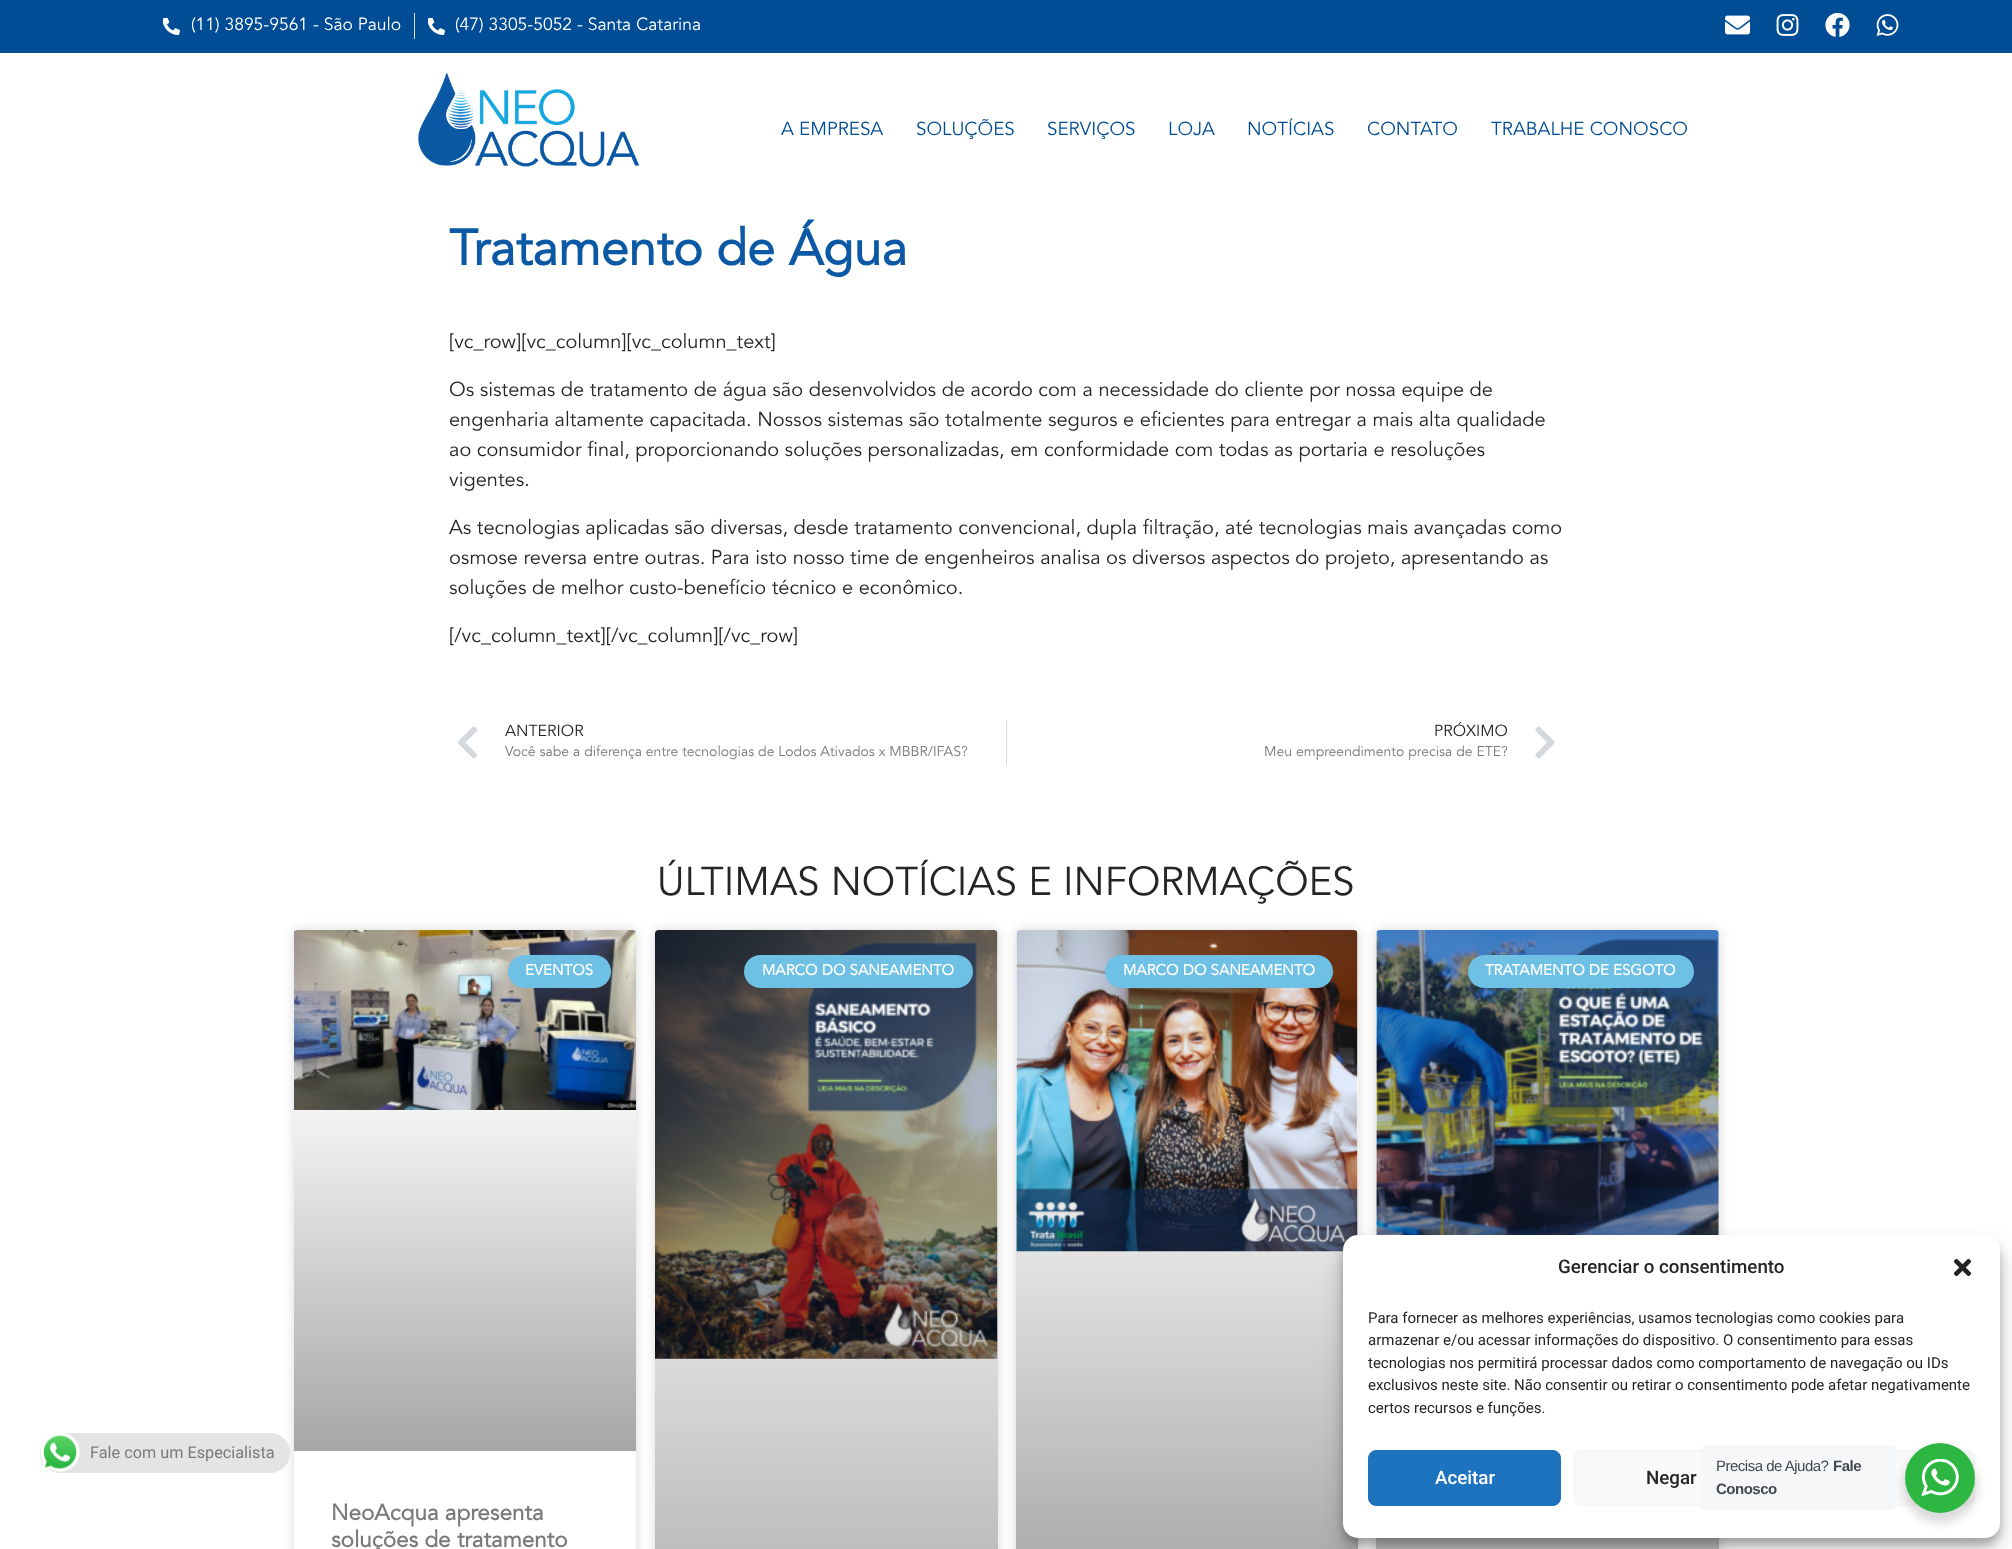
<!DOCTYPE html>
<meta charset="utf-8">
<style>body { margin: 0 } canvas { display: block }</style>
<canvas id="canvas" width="2012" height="1549"></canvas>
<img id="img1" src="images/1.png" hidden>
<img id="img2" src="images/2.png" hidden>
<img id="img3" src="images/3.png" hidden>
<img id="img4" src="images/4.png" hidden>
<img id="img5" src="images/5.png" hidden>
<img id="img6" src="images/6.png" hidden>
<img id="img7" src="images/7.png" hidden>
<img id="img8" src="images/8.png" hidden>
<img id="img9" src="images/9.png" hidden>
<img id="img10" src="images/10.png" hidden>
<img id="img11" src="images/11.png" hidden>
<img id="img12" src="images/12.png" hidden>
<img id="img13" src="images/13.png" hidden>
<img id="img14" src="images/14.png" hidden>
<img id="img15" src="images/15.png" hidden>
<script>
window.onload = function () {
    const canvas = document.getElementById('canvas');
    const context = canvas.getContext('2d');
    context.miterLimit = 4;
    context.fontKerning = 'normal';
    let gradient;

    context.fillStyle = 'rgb(255, 255, 255)';
    context.fillRect(0, 0, 2012, 1549);
    context.fillStyle = 'rgb(0, 77, 149)';
    context.fillRect(0, 0, 2012, 53);
    context.drawImage(document.getElementById('img1'), 163, 18, 17, 17);
    context.fillStyle = 'rgb(221, 221, 221)';
    context.fillRect(414, 13, 1, 26);
    context.drawImage(document.getElementById('img1'), 428, 18, 17, 17);
    context.drawImage(document.getElementById('img2'), 1725, 15, 25, 20);
    context.drawImage(document.getElementById('img3'), 1776, 14, 23, 22);
    context.drawImage(document.getElementById('img4'), 1825, 13, 25, 24);
    context.drawImage(document.getElementById('img5'), 1876, 14, 23, 22);
    context.drawImage(document.getElementById('img6'), 418, 72, 221, 95);
    context.drawImage(document.getElementById('img7'), 457, 726, 21, 33);
    context.fillStyle = 'rgb(213, 216, 220)';
    context.fillRect(1006, 720, 1, 45);
    context.drawImage(document.getElementById('img8'), 1535, 726, 20, 33);
    context.save();
    context.beginPath();
    context.moveTo(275, 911);
    context.lineTo(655, 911);
    context.lineTo(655, 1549);
    context.lineTo(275, 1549);
    context.closePath();
    context.moveTo(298, 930);
    context.lineTo(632, 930);
    context.bezierCurveTo(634, 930, 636, 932, 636, 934);
    context.lineTo(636, 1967);
    context.bezierCurveTo(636, 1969, 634, 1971, 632, 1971);
    context.lineTo(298, 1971);
    context.bezierCurveTo(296, 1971, 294, 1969, 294, 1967);
    context.lineTo(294, 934);
    context.bezierCurveTo(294, 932, 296, 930, 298, 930);
    context.closePath();
    context.clip('evenodd');
    context.fillStyle = 'rgba(0, 0, 0, 0.15)';
    context.filter = 'blur(6px)';
    context.beginPath();
    context.roundRect(294, 930, 342, 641, 4);
    context.fill();
    context.filter = 'none';
    context.restore();
    context.drawImage(document.getElementById('img9'), 294, 930, 343, 180);
    gradient = context.createLinearGradient(465, 1451, 465, 930);
    gradient.addColorStop(0, 'rgba(0, 0, 0, 0.35)');
    gradient.addColorStop(0.75, 'rgba(0, 0, 0, 0)');
    context.fillStyle = gradient;
    context.fillRect(294, 1084, 342, 367);
    context.fillStyle = 'rgb(110, 193, 228)';
    context.beginPath();
    context.roundRect(508, 955, 103, 33, 16.5);
    context.fill();
    context.fillStyle = 'rgba(0, 0, 0, 0.15)';
    context.filter = 'blur(6px)';
    context.beginPath();
    context.roundRect(655, 930, 343, 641, 4);
    context.fill();
    context.filter = 'none';
    context.fillStyle = 'rgb(255, 255, 255)';
    context.beginPath();
    context.roundRect(655, 930, 343, 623, 4);
    context.fill();
    context.drawImage(document.getElementById('img10'), 655, 930, 343, 429);
    gradient = context.createLinearGradient(826, 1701, 826, 930);
    gradient.addColorStop(0, 'rgba(0, 0, 0, 0.35)');
    gradient.addColorStop(0.75, 'rgba(0, 0, 0, 0)');
    context.fillStyle = gradient;
    context.fillRect(655, 1158, 343, 391);
    context.fillStyle = 'rgb(110, 193, 228)';
    context.beginPath();
    context.roundRect(744, 955, 229, 33, 16.5);
    context.fill();
    context.fillStyle = 'rgba(0, 0, 0, 0.15)';
    context.filter = 'blur(6px)';
    context.beginPath();
    context.roundRect(1016, 930, 342, 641, 4);
    context.fill();
    context.filter = 'none';
    context.fillStyle = 'rgb(255, 255, 255)';
    context.beginPath();
    context.roundRect(1016, 930, 342, 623, 4);
    context.fill();
    context.drawImage(document.getElementById('img11'), 1016, 930, 342, 322);
    gradient = context.createLinearGradient(1187, 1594, 1187, 930);
    gradient.addColorStop(0, 'rgba(0, 0, 0, 0.35)');
    gradient.addColorStop(0.75, 'rgba(0, 0, 0, 0)');
    context.fillStyle = gradient;
    context.fillRect(1016, 1127, 342, 422);
    context.fillStyle = 'rgb(110, 193, 228)';
    context.beginPath();
    context.roundRect(1105, 955, 228, 33, 16.5);
    context.fill();
    context.fillStyle = 'rgba(0, 0, 0, 0.15)';
    context.filter = 'blur(6px)';
    context.beginPath();
    context.roundRect(1376, 930, 343, 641, 4);
    context.fill();
    context.filter = 'none';
    context.fillStyle = 'rgb(255, 255, 255)';
    context.beginPath();
    context.roundRect(1376, 930, 343, 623, 4);
    context.fill();
    context.drawImage(document.getElementById('img12'), 1376, 930, 343, 305);
    gradient = context.createLinearGradient(1548, 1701, 1548, 930);
    gradient.addColorStop(0, 'rgba(0, 0, 0, 0.35)');
    gradient.addColorStop(0.75, 'rgba(0, 0, 0, 0)');
    context.fillStyle = gradient;
    context.fillRect(1376, 1158, 343, 391);
    context.fillStyle = 'rgb(110, 193, 228)';
    context.beginPath();
    context.roundRect(1468, 955, 226, 33, 16.5);
    context.fill();
    context.fillStyle = 'rgb(228, 228, 228)';
    context.beginPath();
    context.roundRect(40, 1433, 250, 40, 20);
    context.fill();
    context.drawImage(document.getElementById('img13'), 40, 1432, 40, 41);
    context.fillStyle = 'rgba(0, 0, 0, 0.23)';
    context.filter = 'blur(4px)';
    context.beginPath();
    context.roundRect(1343, 1243, 657, 302, 15);
    context.fill();
    context.filter = 'none';
    context.fillStyle = 'rgba(0, 0, 0, 0.19)';
    context.filter = 'blur(12.5px)';
    context.beginPath();
    context.roundRect(1343, 1248, 657, 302, 15);
    context.fill();
    context.filter = 'none';
    context.fillStyle = 'rgb(255, 255, 255)';
    context.beginPath();
    context.roundRect(1343, 1235, 657, 303, 15);
    context.fill();
    context.drawImage(document.getElementById('img14'), 1953, 1258, 19, 19);
    context.fillStyle = 'rgb(30, 115, 190)';
    context.beginPath();
    context.roundRect(1368.5, 1450.5, 192, 55, 7.5);
    context.fill();
    context.strokeStyle = 'rgb(30, 115, 190)';
    context.stroke();
    context.fillStyle = 'rgb(249, 249, 249)';
    context.beginPath();
    context.roundRect(1574.5, 1450.5, 194, 55, 7.5);
    context.fill();
    context.strokeStyle = 'rgb(242, 242, 242)';
    context.stroke();
    context.beginPath();
    context.roundRect(1781.5, 1450.5, 193, 55, 7.5);
    context.fill();
    context.stroke();
    context.fillStyle = 'rgba(0, 0, 0, 0.14)';
    context.filter = 'blur(5px)';
    context.beginPath();
    context.roundRect(1903, 1448, 75, 75, 37.5);
    context.fill();
    context.filter = 'none';
    context.fillStyle = 'rgb(245, 247, 249)';
    context.beginPath();
    context.roundRect(1701, 1445, 195, 65, 5);
    context.fill();
    context.fillStyle = 'rgb(45, 183, 66)';
    context.beginPath();
    context.arc(1940, 1478, 35, 0, 2 * Math.PI);
    context.fill();
    context.drawImage(document.getElementById('img15'), 1921, 1459, 38, 37);
    context.font = '17.5px Avenir';
    context.fillStyle = 'rgb(255, 255, 255)';
    context.fillText('(11) 3895-9561 - São Paulo', 191, 30);
    context.fillText('(47) 3305-5052 - Santa Catarina', 455, 30);
    context.font = '18.75px Avenir';
    context.fillStyle = 'rgb(0, 77, 149)';
    context.fillText('A EMPRESA', 781, 135);
    context.fillText('SOLUÇÕES', 916, 135);
    context.fillText('SERVIÇOS', 1047, 135);
    context.fillText('LOJA', 1168, 135);
    context.fillText('NOTÍCIAS', 1247, 135);
    context.fillText('CONTATO', 1367, 135);
    context.fillText('TRABALHE CONOSCO', 1491, 135);
    context.font = 'bold 50px Avenir';
    context.fillStyle = 'rgb(11, 88, 164)';
    context.fillText('Tratamento de Água', 449, 265);
    context.font = '20px Avenir';
    context.fillStyle = 'rgb(37, 37, 37)';
    context.fillText('[vc_row][vc_column][vc_column_text]', 449, 348);
    context.fillText('Os sistemas de tratamento de água são desenvolvidos de acordo com a necessidade do cliente por nossa equipe de', 449, 396);
    context.fillText('engenharia altamente capacitada. Nossos sistemas são totalmente seguros e eficientes para entregar a mais alta qualidade', 449, 426);
    context.fillText('ao consumidor final, proporcionando soluções personalizadas, em conformidade com todas as portaria e resoluções', 449, 456);
    context.fillText('vigentes.', 449, 486);
    context.fillText('As tecnologias aplicadas são diversas, desde tratamento convencional, dupla filtração, até tecnologias mais avançadas como', 449, 534);
    context.fillText('osmose reversa entre outras. Para isto nosso time de engenheiros analisa os diversos aspectos do projeto, apresentando as', 449, 564);
    context.fillText('soluções de melhor custo-benefício técnico e econômico.', 449, 594);
    context.fillText('[/vc_column_text][/vc_column][/vc_row]', 449, 642);
    context.font = '16px Avenir';
    context.fillText('ANTERIOR', 505, 736);
    context.font = '14px Avenir';
    context.fillStyle = 'rgb(122, 122, 122)';
    context.fillText('Você sabe a diferença entre tecnologias de Lodos Ativados x MBBR/IFAS?', 505, 756);
    context.font = '16px Avenir';
    context.fillStyle = 'rgb(37, 37, 37)';
    context.fillText('PRÓXIMO', 1434, 736);
    context.font = '14px Avenir';
    context.fillStyle = 'rgb(122, 122, 122)';
    context.fillText('Meu empreendimento precisa de ETE?', 1264, 756);
    context.font = '40px Avenir';
    context.fillStyle = 'rgb(37, 37, 37)';
    context.fillText('ÚLTIMAS NOTÍCIAS E INFORMAÇÕES', 657, 895);
    context.font = 'bold 15px Avenir';
    context.fillStyle = 'rgb(255, 255, 255)';
    context.fillText('EVENTOS', 525, 975);
    context.font = 'bold 22.5px Avenir';
    context.fillStyle = 'rgb(122, 122, 122)';
    context.fillText('NeoAcqua apresenta', 331, 1520);
    context.fillText('soluções de tratamento', 331, 1547);
    context.font = 'bold 15px Avenir';
    context.fillStyle = 'rgb(255, 255, 255)';
    context.fillText('MARCO DO SANEAMENTO', 762, 975);
    context.fillText('MARCO DO SANEAMENTO', 1123, 975);
    context.fillText('TRATAMENTO DE ESGOTO', 1485, 975);
    context.font = '16.25px Roboto';
    context.fillStyle = 'rgb(122, 122, 122)';
    context.fillText('Fale com um Especialista', 90, 1458);
    context.font = '500 18.75px Roboto';
    context.fillStyle = 'rgb(37, 37, 37)';
    context.fillText('Gerenciar o consentimento', 1558, 1273);
    context.font = '15px Roboto';
    context.fillText('Para fornecer as melhores experiências, usamos tecnologias como cookies para', 1368, 1323);
    context.fillText('armazenar e/ou acessar informações do dispositivo. O consentimento para essas', 1368, 1345);
    context.fillText('tecnologias nos permitirá processar dados como comportamento de navegação ou IDs', 1368, 1368);
    context.fillText('exclusivos neste site. Não consentir ou retirar o consentimento pode afetar negativamente', 1368, 1390);
    context.fillText('certos recursos e funções.', 1368, 1413);
    context.font = '500 18.75px Roboto';
    context.fillStyle = 'rgb(255, 255, 255)';
    context.fillText('Aceitar', 1435, 1484);
    context.fillStyle = 'rgb(37, 37, 37)';
    context.fillText('Negar', 1646, 1484);
    context.letterSpacing = '-0.5px';
    context.font = '15px Liberation Sans';
    context.fillStyle = 'rgb(67, 71, 78)';
    context.fillText('Precisa de Ajuda?', 1716, 1471);
    context.font = 'bold 15px Liberation Sans';
    context.fillText('Fale', 1833, 1471);
    context.fillText('Conosco', 1716, 1494);
};
</script>
